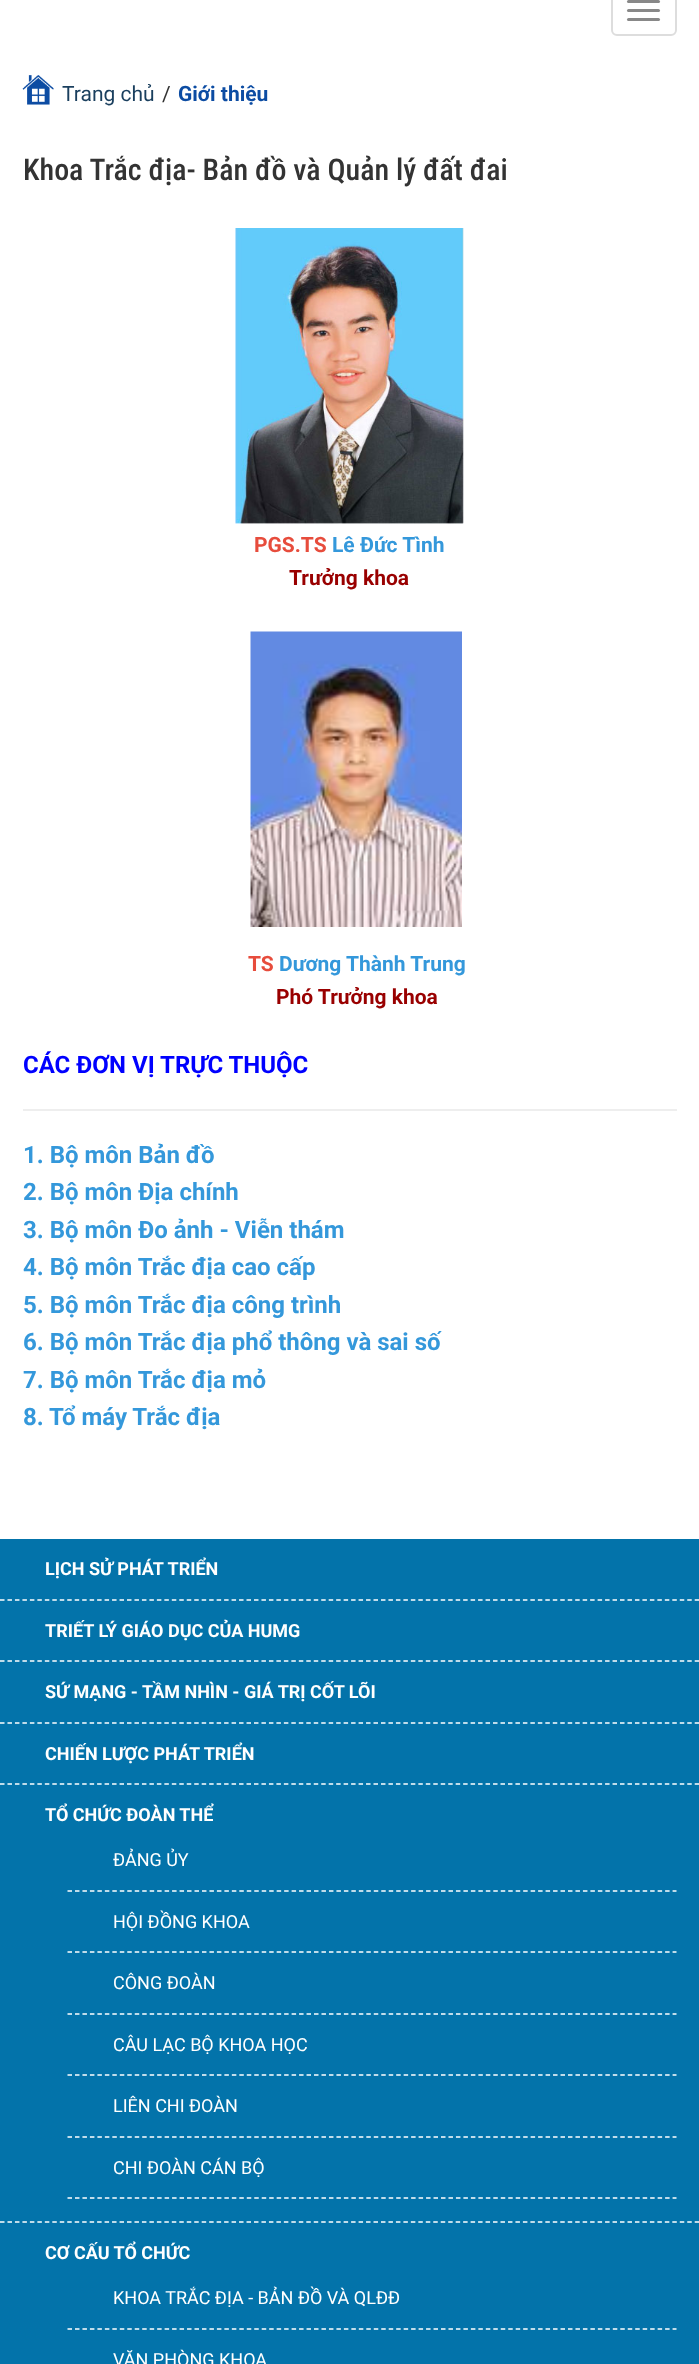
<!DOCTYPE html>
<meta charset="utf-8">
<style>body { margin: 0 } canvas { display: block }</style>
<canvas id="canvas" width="699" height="2364"></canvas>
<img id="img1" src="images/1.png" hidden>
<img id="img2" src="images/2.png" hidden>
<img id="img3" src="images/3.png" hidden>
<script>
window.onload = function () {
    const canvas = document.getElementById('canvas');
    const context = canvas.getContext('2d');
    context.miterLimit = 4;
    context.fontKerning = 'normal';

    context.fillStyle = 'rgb(255, 255, 255)';
    context.fillRect(0, 0, 699, 2364);
    context.beginPath();
    context.roundRect(612, -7, 64, 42, 5);
    context.strokeStyle = 'rgb(221, 221, 221)';
    context.lineWidth = 2;
    context.stroke();
    context.fillStyle = 'rgb(136, 136, 136)';
    context.beginPath();
    context.roundRect(627, 0, 33, 3, 1.5);
    context.fill();
    context.beginPath();
    context.roundRect(627, 9, 33, 3, 1.5);
    context.fill();
    context.beginPath();
    context.roundRect(627, 18, 33, 3, 1.5);
    context.fill();
    context.drawImage(document.getElementById('img1'), 22, 75, 32, 30);
    context.drawImage(document.getElementById('img2'), 235, 228, 229, 296);
    context.drawImage(document.getElementById('img3'), 250, 631, 212, 296);
    context.fillStyle = 'rgb(238, 238, 238)';
    context.fillRect(23, 1109, 654, 2);
    context.fillStyle = 'rgb(3, 115, 170)';
    context.fillRect(0, 1539, 699, 825);
    context.beginPath();
    context.moveTo(0, 1600);
    context.lineTo(699, 1600);
    context.strokeStyle = 'rgb(255, 255, 255)';
    context.lineWidth = 1.5;
    context.setLineDash([4.5, 2.97]);
    context.stroke();
    context.beginPath();
    context.moveTo(0, 1661);
    context.lineTo(699, 1661);
    context.stroke();
    context.beginPath();
    context.moveTo(0, 1723);
    context.lineTo(699, 1723);
    context.stroke();
    context.beginPath();
    context.moveTo(0, 1784);
    context.lineTo(699, 1784);
    context.stroke();
    context.beginPath();
    context.moveTo(0, 2222);
    context.lineTo(699, 2222);
    context.stroke();
    context.beginPath();
    context.moveTo(67.5, 1891);
    context.lineTo(676.5, 1891);
    context.stroke();
    context.beginPath();
    context.moveTo(67.5, 1952);
    context.lineTo(676.5, 1952);
    context.stroke();
    context.beginPath();
    context.moveTo(67.5, 2014);
    context.lineTo(676.5, 2014);
    context.stroke();
    context.beginPath();
    context.moveTo(67.5, 2075);
    context.lineTo(676.5, 2075);
    context.stroke();
    context.beginPath();
    context.moveTo(67.5, 2137);
    context.lineTo(676.5, 2137);
    context.stroke();
    context.beginPath();
    context.moveTo(67.5, 2198);
    context.lineTo(676.5, 2198);
    context.stroke();
    context.beginPath();
    context.moveTo(67.5, 2329);
    context.lineTo(676.5, 2329);
    context.stroke();
    context.font = '21px Roboto';
    context.fillStyle = 'rgb(26, 63, 94)';
    context.fillText('Trang chủ', 62, 101);
    context.fillStyle = 'rgb(51, 51, 51)';
    context.fillText('/', 162, 101);
    context.font = 'bold 21px Roboto';
    context.fillStyle = 'rgb(12, 76, 163)';
    context.fillText('Giới thiệu', 178, 101);
    context.font = '500 30px Roboto Condensed';
    context.fillStyle = 'rgb(51, 51, 51)';
    context.fillText('Khoa Trắc địa- Bản đồ và Quản lý đất đai', 23, 180);
    context.font = 'bold 21px Roboto';
    context.fillStyle = 'rgb(231, 76, 60)';
    context.fillText('PGS.TS', 254, 552);
    context.fillStyle = 'rgb(52, 152, 219)';
    context.fillText('Lê Đức Tình', 332, 552);
    context.fillStyle = 'rgb(153, 0, 0)';
    context.fillText('Trưởng khoa', 289, 585);
    context.fillStyle = 'rgb(231, 76, 60)';
    context.fillText('TS', 248, 971);
    context.fillStyle = 'rgb(52, 152, 219)';
    context.fillText('Dương Thành Trung', 279, 971);
    context.fillStyle = 'rgb(153, 0, 0)';
    context.fillText('Phó Trưởng khoa', 276, 1004);
    context.font = 'bold 24px Roboto';
    context.fillStyle = 'rgb(0, 0, 255)';
    context.fillText('CÁC ĐƠN VỊ TRỰC THUỘC', 23, 1073);
    context.fillStyle = 'rgb(52, 152, 219)';
    context.fillText('1. Bộ môn Bản đồ', 23, 1163);
    context.fillText('2. Bộ môn Địa chính', 23, 1200);
    context.fillText('3. Bộ môn Đo ảnh - Viễn thám', 23, 1238);
    context.fillText('4. Bộ môn Trắc địa cao cấp', 23, 1275);
    context.fillText('5. Bộ môn Trắc địa công trình', 23, 1313);
    context.fillText('6. Bộ môn Trắc địa phổ thông và sai số', 23, 1350);
    context.fillText('7. Bộ môn Trắc địa mỏ', 23, 1388);
    context.fillText('8. Tổ máy Trắc địa', 23, 1425);
    context.font = 'bold 18px Roboto';
    context.fillStyle = 'rgb(255, 255, 255)';
    context.fillText('LỊCH SỬ PHÁT TRIỂN', 45, 1575);
    context.fillText('TRIẾT LÝ GIÁO DỤC CỦA HUMG', 45, 1637);
    context.fillText('SỨ MẠNG - TẦM NHÌN - GIÁ TRỊ CỐT LÕI', 45, 1698);
    context.fillText('CHIẾN LƯỢC PHÁT TRIỂN', 45, 1760);
    context.fillText('TỔ CHỨC ĐOÀN THỂ', 45, 1821);
    context.font = '18px Roboto';
    context.fillText('ĐẢNG ỦY', 113, 1866);
    context.fillText('HỘI ĐỒNG KHOA', 113, 1928);
    context.fillText('CÔNG ĐOÀN', 113, 1989);
    context.fillText('CÂU LẠC BỘ KHOA HỌC', 113, 2051);
    context.fillText('LIÊN CHI ĐOÀN', 113, 2112);
    context.fillText('CHI ĐOÀN CÁN BỘ', 113, 2174);
    context.font = 'bold 18px Roboto';
    context.fillText('CƠ CẤU TỔ CHỨC', 45, 2259);
    context.font = '18px Roboto';
    context.fillText('KHOA TRẮC ĐỊA - BẢN ĐỒ VÀ QLĐĐ', 113, 2304);
    context.fillText('VĂN PHÒNG KHOA', 113, 2366);
};
</script>
